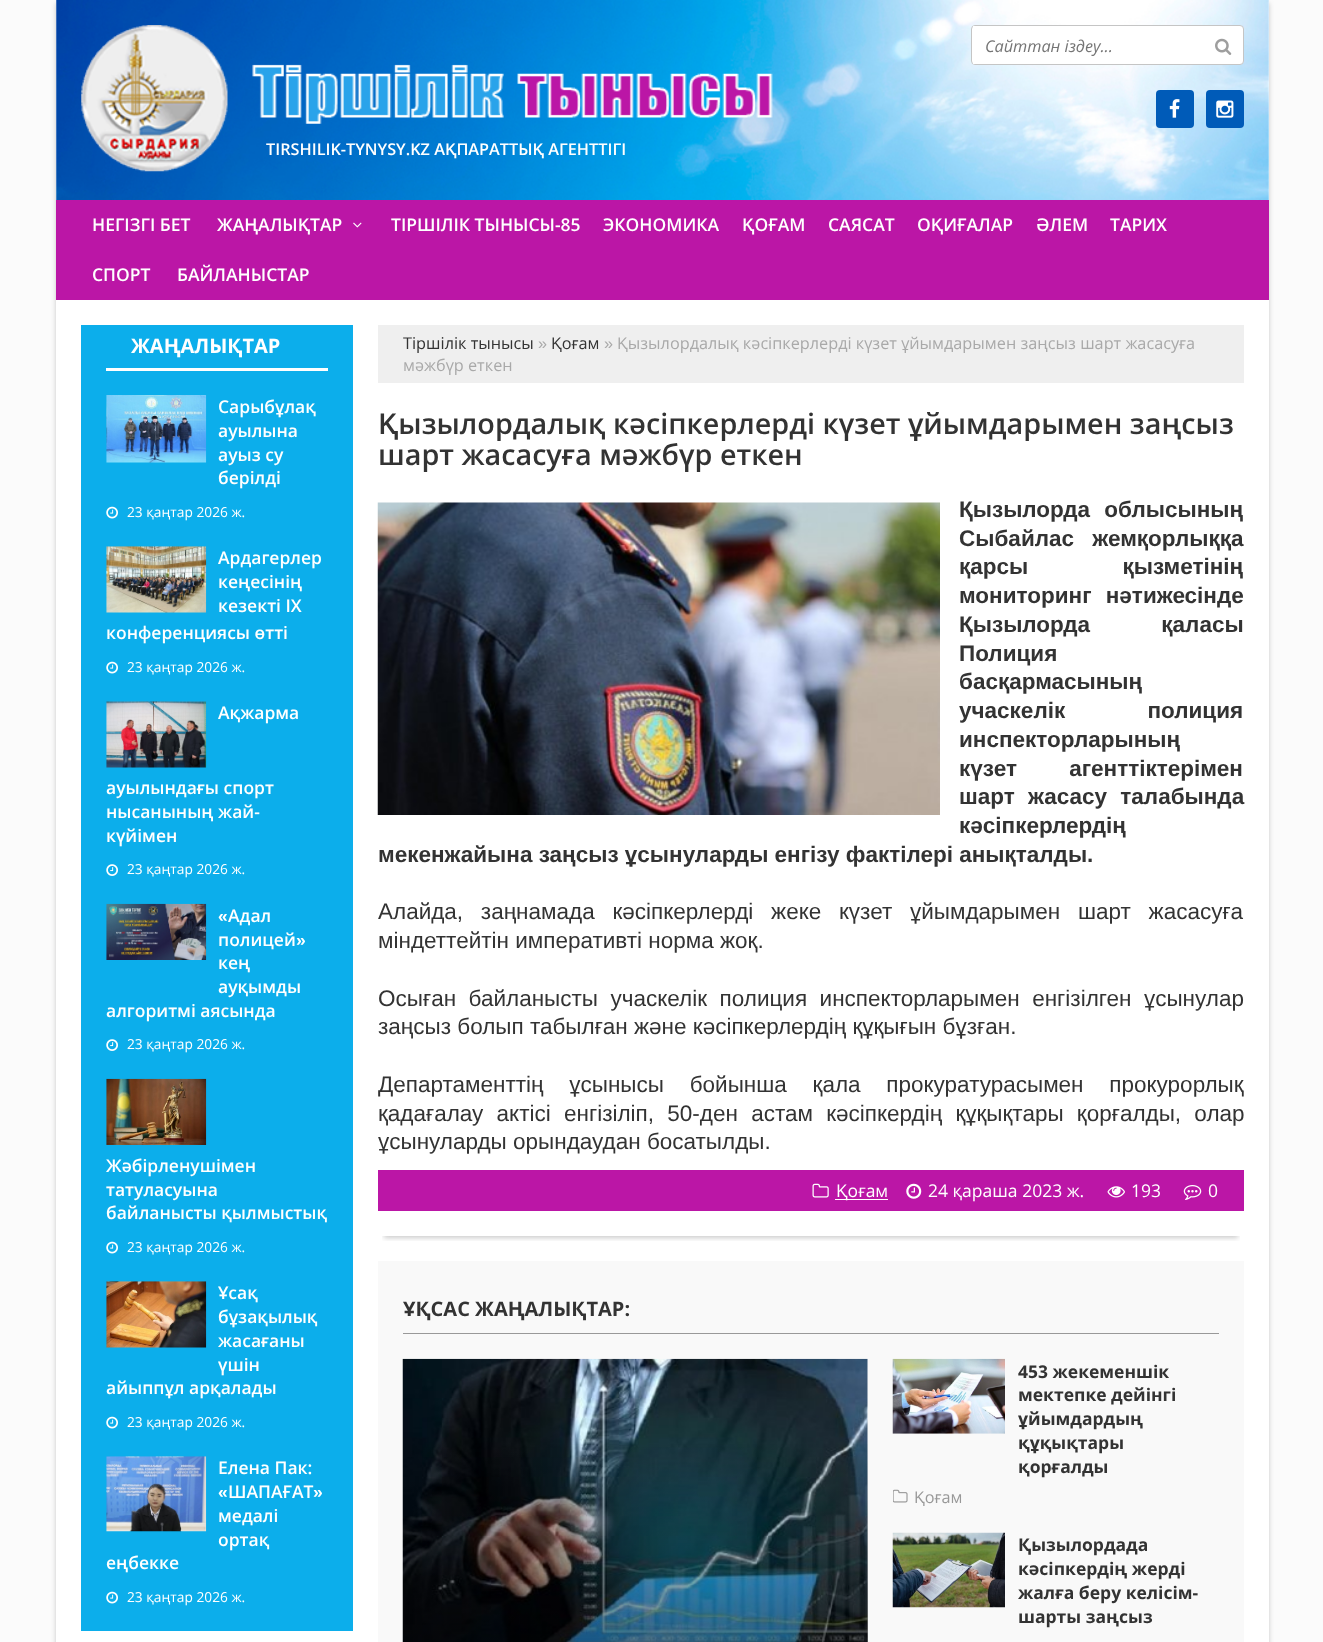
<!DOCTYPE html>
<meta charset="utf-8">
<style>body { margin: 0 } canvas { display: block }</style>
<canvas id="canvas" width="1323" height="1642"></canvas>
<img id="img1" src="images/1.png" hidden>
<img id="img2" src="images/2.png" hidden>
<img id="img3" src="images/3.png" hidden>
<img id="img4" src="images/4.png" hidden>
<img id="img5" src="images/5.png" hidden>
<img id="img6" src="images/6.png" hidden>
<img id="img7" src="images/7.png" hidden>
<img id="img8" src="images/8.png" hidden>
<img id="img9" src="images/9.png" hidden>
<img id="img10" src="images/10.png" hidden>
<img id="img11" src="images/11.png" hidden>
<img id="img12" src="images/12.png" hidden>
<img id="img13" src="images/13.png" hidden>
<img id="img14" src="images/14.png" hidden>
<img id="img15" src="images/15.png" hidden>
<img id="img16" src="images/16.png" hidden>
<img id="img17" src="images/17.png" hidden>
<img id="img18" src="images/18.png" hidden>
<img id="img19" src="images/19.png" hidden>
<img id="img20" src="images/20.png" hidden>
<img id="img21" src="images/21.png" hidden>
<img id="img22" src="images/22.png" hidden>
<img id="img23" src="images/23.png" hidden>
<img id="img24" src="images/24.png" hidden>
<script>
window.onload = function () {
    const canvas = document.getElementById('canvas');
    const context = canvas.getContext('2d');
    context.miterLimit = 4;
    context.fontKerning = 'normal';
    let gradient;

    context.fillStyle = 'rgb(251, 251, 251)';
    context.fillRect(0, 0, 1323, 1642);
    context.fillStyle = 'rgba(0, 0, 0, 0.2)';
    context.filter = 'blur(2.5px)';
    context.beginPath();
    context.rect(56, 3, 1213, 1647);
    context.fill();
    context.filter = 'none';
    context.fillStyle = 'rgb(255, 255, 255)';
    context.fillRect(56, 0, 1213, 1642);
    context.drawImage(document.getElementById('img1'), 56, 0, 1213, 200);
    context.beginPath();
    context.roundRect(971.5, 25.5, 272, 39, 3.5);
    context.fill();
    context.strokeStyle = 'rgb(197, 197, 197)';
    context.stroke();
    context.fillRect(973, 26, 2, 38);
    context.drawImage(document.getElementById('img2'), 1215, 38, 17, 17);
    context.fillStyle = 'rgb(0, 91, 184)';
    context.beginPath();
    context.roundRect(1156, 90, 38, 38, 4);
    context.fill();
    context.drawImage(document.getElementById('img3'), 1169, 99, 11, 19);
    context.beginPath();
    context.roundRect(1206, 90, 38, 38, 4);
    context.fill();
    context.drawImage(document.getElementById('img4'), 1216, 100, 18, 18);
    context.drawImage(document.getElementById('img5'), 81, 25, 692, 147);
    context.fillStyle = 'rgb(187, 22, 166)';
    context.fillRect(56, 200, 1213, 100);
    context.drawImage(document.getElementById('img6'), 353, 222, 9, 6);
    context.fillStyle = 'rgb(12, 174, 235)';
    context.fillRect(81, 325, 272, 1306);
    context.fillStyle = 'rgb(255, 255, 255)';
    context.fillRect(106, 368, 222, 3);
    context.drawImage(document.getElementById('img7'), 106, 395, 101, 68);
    context.drawImage(document.getElementById('img8'), 106, 506, 12, 13);
    context.drawImage(document.getElementById('img9'), 106, 546, 101, 67);
    context.drawImage(document.getElementById('img8'), 106, 661, 12, 13);
    context.drawImage(document.getElementById('img10'), 106, 701, 101, 67);
    context.drawImage(document.getElementById('img11'), 106, 864, 12, 12);
    context.drawImage(document.getElementById('img12'), 106, 903, 101, 57);
    context.drawImage(document.getElementById('img11'), 106, 1039, 12, 12);
    context.drawImage(document.getElementById('img13'), 106, 1078, 101, 67);
    context.drawImage(document.getElementById('img8'), 106, 1241, 12, 13);
    context.drawImage(document.getElementById('img14'), 106, 1281, 101, 67);
    context.drawImage(document.getElementById('img8'), 106, 1416, 12, 13);
    context.drawImage(document.getElementById('img15'), 106, 1456, 101, 76);
    context.drawImage(document.getElementById('img8'), 106, 1591, 12, 13);
    context.fillStyle = 'rgb(239, 239, 239)';
    context.fillRect(378, 325, 866, 58);
    context.save();
    context.beginPath();
    context.rect(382, 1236, 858, 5);
    context.clip();
    context.fillStyle = 'rgba(0, 0, 0, 0.2)';
    context.filter = 'blur(2.5px)';
    context.beginPath();
    context.rect(384, 421, 854, 817);
    context.fill();
    context.filter = 'none';
    context.restore();
    context.drawImage(document.getElementById('img16'), 377, 502, 563, 313);
    context.fillStyle = 'rgb(187, 22, 166)';
    context.fillRect(378, 1170, 866, 41);
    context.drawImage(document.getElementById('img17'), 812, 1183, 17, 15);
    context.fillStyle = 'rgb(255, 255, 255)';
    context.fillRect(835, 1199, 53, 1);
    context.drawImage(document.getElementById('img18'), 906, 1183, 16, 16);
    context.drawImage(document.getElementById('img19'), 1107, 1186, 18, 12);
    context.drawImage(document.getElementById('img20'), 1183, 1185, 19, 15);
    context.fillStyle = 'rgb(249, 249, 249)';
    context.fillRect(378, 1261, 866, 381);
    context.fillStyle = 'rgb(153, 153, 153)';
    context.fillRect(403, 1333, 816, 1);
    context.drawImage(document.getElementById('img21'), 402, 1358, 466, 284);
    gradient = context.createLinearGradient(635, 1435, 635, 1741);
    gradient.addColorStop(0, 'rgba(0, 0, 0, 0)');
    gradient.addColorStop(1, 'rgba(0, 0, 0, 0.7)');
    context.fillStyle = gradient;
    context.fillRect(403, 1444, 465, 198);
    context.drawImage(document.getElementById('img22'), 892, 1358, 113, 76);
    context.drawImage(document.getElementById('img23'), 893, 1489, 15, 14);
    context.drawImage(document.getElementById('img24'), 892, 1532, 113, 76);
    context.font = 'italic 16.25px Open Sans';
    context.fillStyle = 'rgb(117, 117, 117)';
    context.fillText('Сайттан іздеу...', 985, 52);
    context.font = '600 16.25px Open Sans';
    context.fillStyle = 'rgb(255, 255, 255)';
    context.fillText('TIRSHILIK-TYNYSY.KZ АҚПАРАТТЫҚ АГЕНТТІГІ', 266, 155);
    context.font = '600 17.5px Open Sans';
    context.fillText('НЕГІЗГІ БЕТ', 92, 231);
    context.fillText('ЖАҢАЛЫҚТАР', 217, 231);
    context.fillText('ТІРШІЛІК ТЫНЫСЫ-85', 391, 231);
    context.fillText('ЭКОНОМИКА', 603, 231);
    context.fillText('ҚОҒАМ', 742, 231);
    context.fillText('САЯСАТ', 828, 231);
    context.fillText('ОҚИҒАЛАР', 917, 231);
    context.fillText('ӘЛЕМ', 1036, 231);
    context.fillText('ТАРИХ', 1110, 231);
    context.fillText('СПОРТ', 92, 281);
    context.fillText('БАЙЛАНЫСТАР', 177, 281);
    context.font = 'bold 20px Open Sans';
    context.fillText('ЖАҢАЛЫҚТАР', 131, 353);
    context.font = '600 17.5px Open Sans';
    context.fillText('Сарыбұлақ', 218, 413);
    context.fillText('ауылына', 218, 437);
    context.fillText('ауыз су', 218, 461);
    context.fillText('берілді', 218, 484);
    context.font = '13.75px Open Sans';
    context.fillText('23 қаңтар 2026 ж.', 127, 517);
    context.font = '600 17.5px Open Sans';
    context.fillText('Ардагерлер', 218, 564);
    context.fillText('кеңесінің', 218, 588);
    context.fillText('кезекті IX', 218, 612);
    context.fillText('конференциясы өтті', 106, 639);
    context.font = '13.75px Open Sans';
    context.fillText('23 қаңтар 2026 ж.', 127, 672);
    context.font = '600 17.5px Open Sans';
    context.fillText('Ақжарма', 218, 719);
    context.fillText('ауылындағы спорт', 106, 794);
    context.fillText('нысанының жай-', 106, 818);
    context.fillText('күйімен', 106, 842);
    context.font = '13.75px Open Sans';
    context.fillText('23 қаңтар 2026 ж.', 127, 874);
    context.font = 'bold 17.5px Liberation Sans';
    context.fillText('«', 218, 922);
    context.font = '600 17.5px Open Sans';
    context.fillText('Адал', 228, 922);
    context.fillText('полицей', 218, 946);
    context.font = 'bold 17.5px Liberation Sans';
    context.fillText('»', 296, 946);
    context.font = '600 17.5px Open Sans';
    context.fillText('кең', 218, 969);
    context.fillText('ауқымды', 218, 993);
    context.fillText('алгоритмі аясында', 106, 1017);
    context.font = '13.75px Open Sans';
    context.fillText('23 қаңтар 2026 ж.', 127, 1049);
    context.font = '600 17.5px Open Sans';
    context.fillText('Жәбірленушімен', 106, 1172);
    context.fillText('татуласуына', 106, 1196);
    context.fillText('байланысты қылмыстық', 106, 1219);
    context.font = '13.75px Open Sans';
    context.fillText('23 қаңтар 2026 ж.', 127, 1252);
    context.font = '600 17.5px Open Sans';
    context.fillText('Ұсақ', 218, 1299);
    context.fillText('бұзақылық', 218, 1323);
    context.fillText('жасағаны', 218, 1347);
    context.fillText('үшін', 218, 1371);
    context.fillText('айыппұл арқалады', 106, 1394);
    context.font = '13.75px Open Sans';
    context.fillText('23 қаңтар 2026 ж.', 127, 1427);
    context.font = '600 17.5px Open Sans';
    context.fillText('Елена Пак:', 218, 1474);
    context.font = 'bold 17.5px Liberation Sans';
    context.fillText('«', 218, 1498);
    context.font = '600 17.5px Open Sans';
    context.fillText('ШАПАҒАТ', 228, 1498);
    context.font = 'bold 17.5px Liberation Sans';
    context.fillText('»', 313, 1498);
    context.font = '600 17.5px Open Sans';
    context.fillText('медалі', 218, 1522);
    context.fillText('ортақ', 218, 1546);
    context.fillText('еңбекке', 106, 1569);
    context.font = '13.75px Open Sans';
    context.fillText('23 қаңтар 2026 ж.', 127, 1602);
    context.font = '16.25px Open Sans';
    context.fillStyle = 'rgb(51, 51, 51)';
    context.fillText('Тіршілік тынысы', 403, 349);
    context.font = '16.25px Liberation Sans';
    context.fillStyle = 'rgb(169, 169, 169)';
    context.fillText('»', 538, 349);
    context.font = '16.25px Open Sans';
    context.fillStyle = 'rgb(51, 51, 51)';
    context.fillText('Қоғам', 551, 349);
    context.font = '16.25px Liberation Sans';
    context.fillStyle = 'rgb(169, 169, 169)';
    context.fillText('»', 604, 349);
    context.font = '16.25px Open Sans';
    context.fillText('Қызылордалық кәсіпкерлерді күзет ұйымдарымен заңсыз шарт жасасуға', 617, 349);
    context.fillText('мәжбүр еткен', 403, 371);
    context.font = '600 28.75px Open Sans';
    context.fillStyle = 'rgb(51, 51, 51)';
    context.fillText('Қызылордалық кәсіпкерлерді күзет ұйымдарымен заңсыз', 378, 434);
    context.fillText('шарт жасасуға мәжбүр еткен', 378, 465);
    context.wordSpacing = '8px';
    context.font = 'bold 22.5px Liberation Sans';
    context.fillText('Қызылорда облысының', 959, 517);
    context.wordSpacing = '12px';
    context.fillText('Сыбайлас жемқорлыққа', 959, 546);
    context.wordSpacing = '88px';
    context.fillText('қарсы қызметінің', 959, 574);
    context.wordSpacing = '8px';
    context.fillText('мониторинг нәтижесінде', 959, 603);
    context.wordSpacing = '65px';
    context.fillText('Қызылорда қаласы', 959, 632);
    context.wordSpacing = '0px';
    context.fillText('Полиция', 959, 661);
    context.fillText('басқармасының', 959, 689);
    context.wordSpacing = '76px';
    context.fillText('учаскелік полиция', 959, 718);
    context.wordSpacing = '0px';
    context.fillText('инспекторларының', 959, 747);
    context.wordSpacing = '46px';
    context.fillText('күзет агенттіктерімен', 959, 776);
    context.wordSpacing = '7px';
    context.fillText('шарт жасасу талабында', 959, 804);
    context.wordSpacing = '0px';
    context.fillText('кәсіпкерлердің', 959, 833);
    context.fillText('мекенжайына заңсыз ұсынуларды енгізу фактілері анықталды.', 378, 862);
    context.wordSpacing = '11.5px';
    context.font = '22.5px Liberation Sans';
    context.fillText('Алайда, заңнамада кәсіпкерлерді жеке күзет ұйымдарымен шарт жасасуға', 378, 919);
    context.wordSpacing = '0px';
    context.fillText('міндеттейтін императивті норма жоқ.', 378, 948);
    context.wordSpacing = '6.25px';
    context.fillText('Осыған байланысты учаскелік полиция инспекторларымен енгізілген ұсынулар', 378, 1006);
    context.wordSpacing = '0px';
    context.fillText('заңсыз болып табылған және кәсіпкерлердің құқығын бұзған.', 378, 1034);
    context.save();
    context.beginPath();
    context.rect(378, 496, 866, 662);
    context.clip();
    context.wordSpacing = '19.5px';
    context.fillText('Департаменттің ұсынысы бойынша қала прокуратурасымен прокурорлық', 378, 1092);
    context.restore();
    context.wordSpacing = '7px';
    context.fillText('қадағалау актісі енгізіліп, 50-ден астам кәсіпкердің құқықтары қорғалды, олар', 378, 1121);
    context.wordSpacing = '0px';
    context.fillText('ұсынуларды орындаудан босатылды.', 378, 1149);
    context.font = '17.5px Open Sans';
    context.fillStyle = 'rgb(255, 255, 255)';
    context.fillText('Қоғам', 836, 1197);
    context.fillText('24 қараша 2023 ж.', 928, 1197);
    context.fillText('193', 1131, 1197);
    context.fillText('0', 1208, 1197);
    context.font = 'bold 20px Open Sans';
    context.fillStyle = 'rgb(51, 51, 51)';
    context.fillText('ҰҚСАС ЖАҢАЛЫҚТАР:', 403, 1316);
    context.font = 'bold 17.5px Open Sans';
    context.fillText('453 жекеменшік', 1018, 1378);
    context.fillText('мектепке дейінгі', 1018, 1401);
    context.fillText('ұйымдардың', 1018, 1425);
    context.fillText('құқықтары', 1018, 1449);
    context.fillText('қорғалды', 1018, 1473);
    context.font = '16.25px Open Sans';
    context.fillStyle = 'rgb(153, 153, 153)';
    context.fillText('Қоғам', 914, 1503);
    context.font = 'bold 17.5px Open Sans';
    context.fillStyle = 'rgb(51, 51, 51)';
    context.fillText('Қызылордада', 1018, 1551);
    context.fillText('кәсіпкердің жерді', 1018, 1575);
    context.fillText('жалға беру келісім-', 1018, 1599);
    context.fillText('шарты заңсыз', 1018, 1623);
};
</script>
